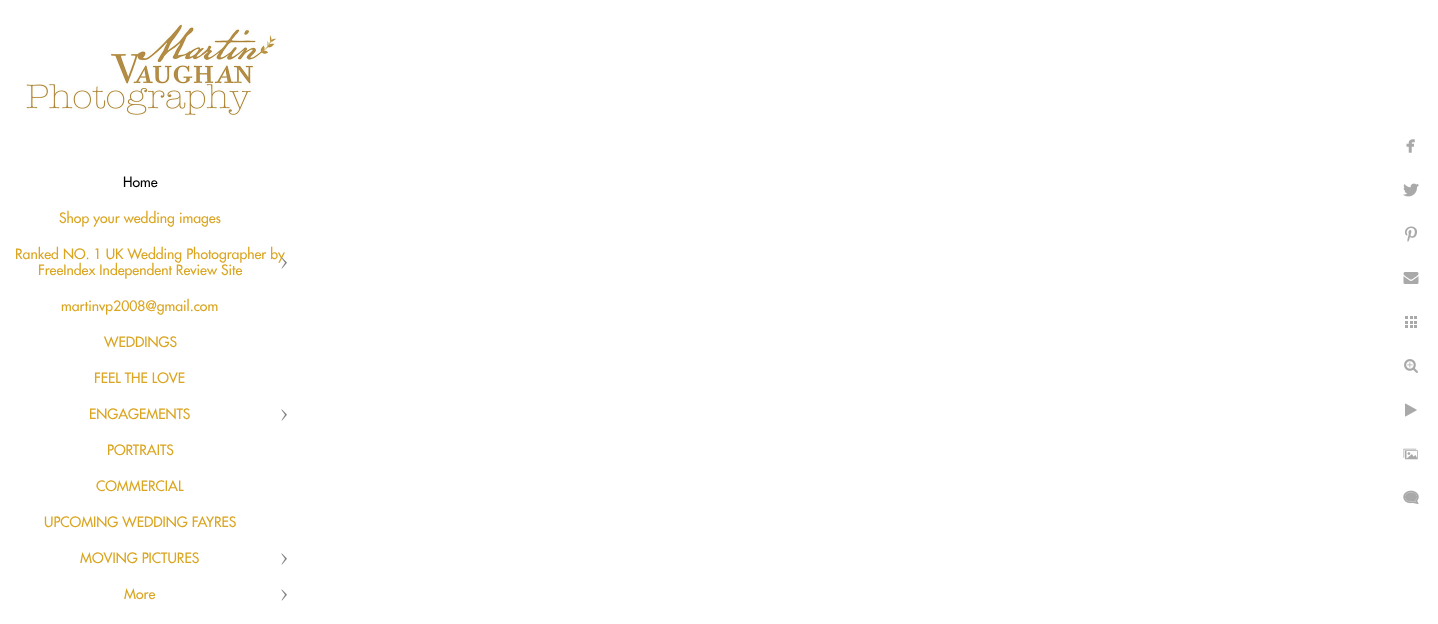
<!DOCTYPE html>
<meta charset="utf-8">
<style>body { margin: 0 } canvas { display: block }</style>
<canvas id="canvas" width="1438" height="624"></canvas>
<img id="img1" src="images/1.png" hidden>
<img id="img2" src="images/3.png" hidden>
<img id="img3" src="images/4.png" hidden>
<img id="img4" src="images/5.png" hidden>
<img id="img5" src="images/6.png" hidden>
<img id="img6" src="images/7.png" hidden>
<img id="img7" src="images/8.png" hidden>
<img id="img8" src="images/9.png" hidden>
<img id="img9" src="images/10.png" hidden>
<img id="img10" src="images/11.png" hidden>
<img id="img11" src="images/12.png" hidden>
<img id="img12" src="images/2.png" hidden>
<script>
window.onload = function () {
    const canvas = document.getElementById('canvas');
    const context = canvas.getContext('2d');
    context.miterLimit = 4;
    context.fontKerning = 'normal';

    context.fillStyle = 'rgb(255, 255, 255)';
    context.fillRect(0, 0, 1438, 624);
    context.drawImage(document.getElementById('img1'), 25, 24, 251, 92);
    context.drawImage(document.getElementById('img2'), 281, 409, 6, 12);
    context.drawImage(document.getElementById('img2'), 281, 553, 6, 12);
    context.drawImage(document.getElementById('img2'), 281, 589, 6, 12);
    context.drawImage(document.getElementById('img3'), 1406, 139, 9, 14);
    context.drawImage(document.getElementById('img4'), 1403, 183, 16, 14);
    context.drawImage(document.getElementById('img5'), 1405, 226, 12, 16);
    context.drawImage(document.getElementById('img6'), 1403, 272, 16, 12);
    context.drawImage(document.getElementById('img7'), 1405, 316, 12, 12);
    context.drawImage(document.getElementById('img8'), 1404, 359, 14, 14);
    context.drawImage(document.getElementById('img9'), 1405, 403, 12, 14);
    context.drawImage(document.getElementById('img10'), 1403, 448, 15, 12);
    context.drawImage(document.getElementById('img11'), 1403, 490, 16, 15);
    context.font = '14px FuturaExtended';
    context.fillStyle = 'rgb(0, 0, 0)';
    context.fillText('Home', 123, 187);
    context.fillStyle = 'rgb(218, 165, 32)';
    context.fillText('Shop your wedding images', 59, 223);
    context.fillText('Ranked NO. 1 UK Wedding Photographer by', 15, 259);
    context.fillText('FreeIndex Independent Review Site', 38, 275);
    context.drawImage(document.getElementById('img12'), 281, 257, 6, 12);
    context.fillText('martinvp2008@gmail.com', 61, 311);
    context.fillText('WEDDINGS', 104, 347);
    context.fillText('FEEL THE LOVE', 94, 383);
    context.fillText('ENGAGEMENTS', 89, 419);
    context.fillText('PORTRAITS', 107, 455);
    context.fillText('COMMERCIAL', 96, 491);
    context.fillText('UPCOMING WEDDING FAYRES', 44, 527);
    context.fillText('MOVING PICTURES', 80, 563);
    context.fillText('More', 124, 599);
};
</script>
